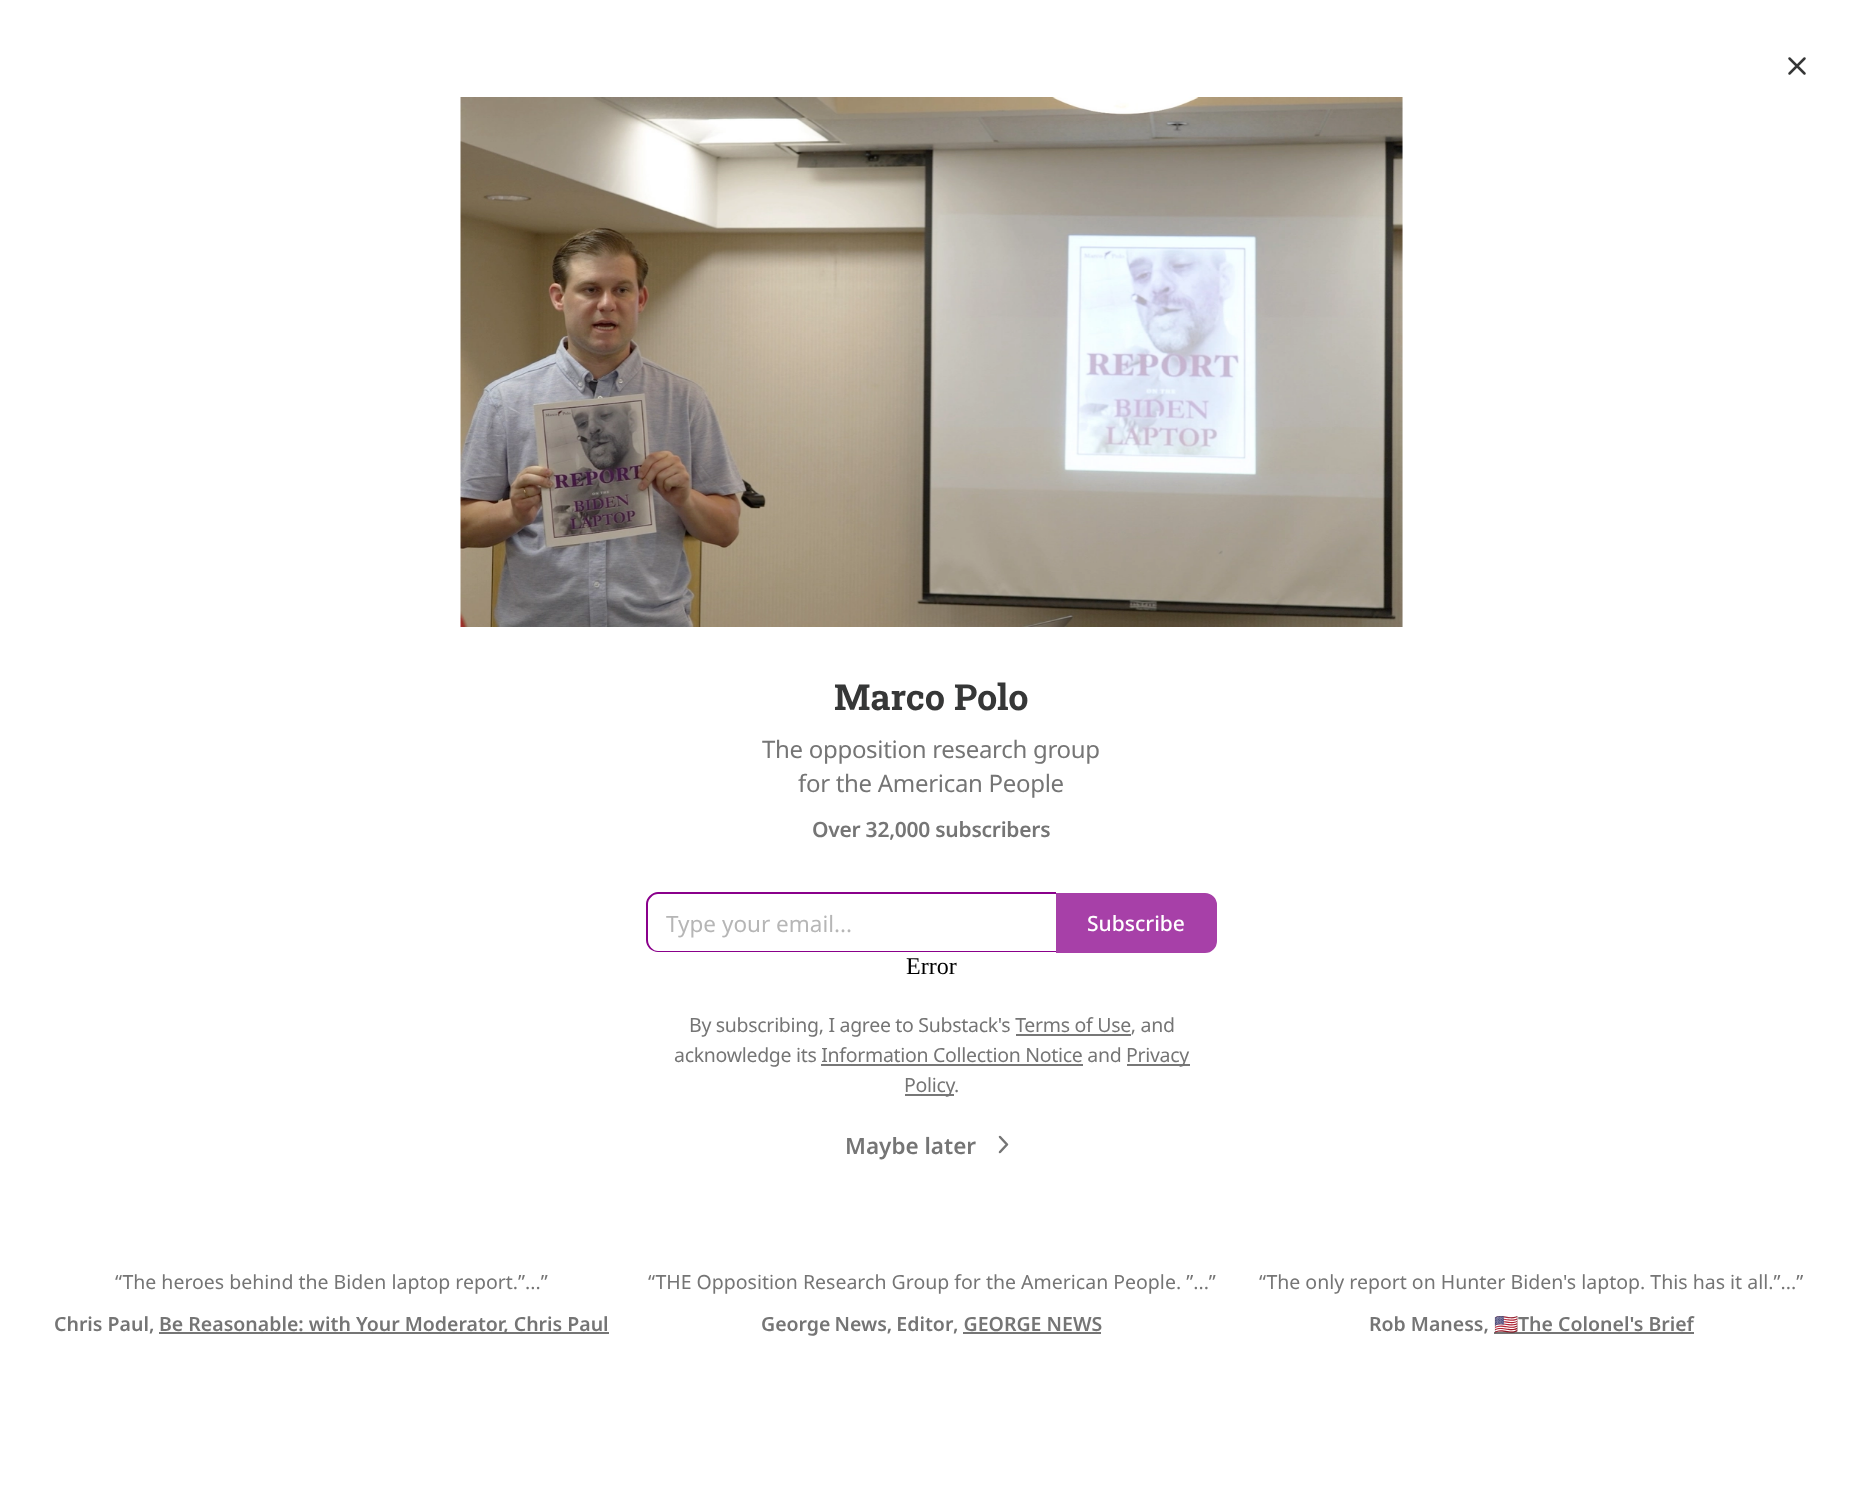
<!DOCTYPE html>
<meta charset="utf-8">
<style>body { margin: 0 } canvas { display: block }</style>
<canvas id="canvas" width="1863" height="1512"></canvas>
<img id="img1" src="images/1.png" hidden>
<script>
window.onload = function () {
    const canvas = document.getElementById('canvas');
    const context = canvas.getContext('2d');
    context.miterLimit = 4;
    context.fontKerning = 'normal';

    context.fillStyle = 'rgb(255, 255, 255)';
    context.fillRect(0, 0, 1863, 1512);
    context.beginPath();
    context.moveTo(1804.5, 58.5);
    context.lineTo(1789.5, 73.5);
    context.moveTo(1789.5, 58.5);
    context.lineTo(1804.5, 73.5);
    context.strokeStyle = 'rgb(54, 55, 55)';
    context.lineWidth = 2.5;
    context.lineCap = 'round';
    context.lineJoin = 'round';
    context.stroke();
    context.drawImage(document.getElementById('img1'), 460, 97, 943, 530);
    context.fillStyle = 'rgb(138, 0, 139)';
    context.beginPath();
    context.moveTo(658, 892);
    context.lineTo(1056, 892);
    context.lineTo(1056, 952);
    context.lineTo(658, 952);
    context.bezierCurveTo(652, 952, 646, 947, 646, 940);
    context.lineTo(646, 904);
    context.bezierCurveTo(646, 898, 652, 892, 658, 892);
    context.closePath();
    context.moveTo(658, 894);
    context.lineTo(1056, 894);
    context.lineTo(1056, 951);
    context.lineTo(658, 951);
    context.bezierCurveTo(653, 951, 648, 946, 648, 940);
    context.lineTo(648, 904);
    context.bezierCurveTo(648, 899, 653, 894, 658, 894);
    context.closePath();
    context.fill('evenodd');
    context.fillStyle = 'rgb(167, 64, 168)';
    context.beginPath();
    context.roundRect(1057, 894, 159, 58, [0, 11, 11, 0]);
    context.fill();
    context.strokeStyle = 'rgb(167, 64, 168)';
    context.lineWidth = 2;
    context.lineJoin = 'miter';
    context.stroke();
    context.fillStyle = 'rgb(119, 119, 119)';
    context.fillRect(1127, 1064, 63, 2);
    context.fillRect(905, 1094, 49, 2);
    context.beginPath();
    context.moveTo(1000, 1152);
    context.lineTo(1007, 1144.5);
    context.lineTo(1000, 1137);
    context.strokeStyle = 'rgb(117, 117, 117)';
    context.lineWidth = 2.5;
    context.lineJoin = 'round';
    context.stroke();
    context.fillStyle = 'rgb(117, 117, 117)';
    context.fillRect(159, 1332, 450, 2);
    context.fillRect(963, 1332, 138, 2);
    context.fillRect(1494, 1332, 200, 2);
    context.font = 'bold 36px Roboto Slab';
    context.fillStyle = 'rgb(54, 55, 55)';
    context.fillText('Marco Polo', 834, 710);
    context.letterSpacing = '-0.3px';
    context.font = '24px Noto Sans';
    context.fillStyle = 'rgb(117, 117, 117)';
    context.fillText('The opposition research group', 762, 758);
    context.fillText('for the American People', 798, 792);
    context.letterSpacing = '-0.25px';
    context.font = '600 21px Noto Sans';
    context.fillText('Over 32,000 subscribers', 812, 837);
    context.letterSpacing = '0px';
    context.font = '22.5px Noto Sans';
    context.fillStyle = 'rgb(182, 182, 182)';
    context.fillText('Type your email...', 666, 932);
    context.font = '500 21px Noto Sans';
    context.fillStyle = 'rgb(255, 255, 255)';
    context.fillText('Subscribe', 1087, 931);
    context.font = '24px Liberation Serif';
    context.fillStyle = 'rgb(0, 0, 0)';
    context.fillText('Error', 906, 974);
    context.letterSpacing = '-0.3px';
    context.font = '19.5px Noto Sans';
    context.fillStyle = 'rgb(117, 117, 117)';
    context.fillText('By subscribing, I agree to Substack\'s Terms of Use, and', 689, 1032);
    context.fillStyle = 'rgb(119, 119, 119)';
    context.fillRect(1016, 1034, 115, 2);
    context.fillStyle = 'rgb(117, 117, 117)';
    context.fillText('acknowledge its Information Collection Notice and', 674, 1062);
    context.fillText('Privacy', 1126, 1062);
    context.fillStyle = 'rgb(119, 119, 119)';
    context.fillRect(821, 1064, 262, 2);
    context.fillStyle = 'rgb(117, 117, 117)';
    context.fillText('Policy', 904, 1092);
    context.fillText('.', 954, 1092);
    context.letterSpacing = '0px';
    context.font = '600 22.5px Noto Sans';
    context.fillText('Maybe later', 845, 1154);
    context.font = '19.5px Noto Sans';
    context.fillText('“The heroes behind the Biden laptop report.”...”', 115, 1289);
    context.font = '600 19.5px Noto Sans';
    context.fillText('Chris Paul,', 54, 1331);
    context.fillText('Be Reasonable: with Your Moderator, Chris Paul', 159, 1331);
    context.font = '19.5px Noto Sans';
    context.fillText('“THE Opposition Research Group for the American People. ”...”', 648, 1289);
    context.wordSpacing = '-1px';
    context.font = '600 19.5px Noto Sans';
    context.fillText('George News, Editor', 761, 1331);
    context.wordSpacing = '0px';
    context.fillText(', GEORGE NEWS', 953, 1331);
    context.font = '19.5px Noto Sans';
    context.fillText('“The only report on Hunter Biden\'s laptop. This has it all.”...”', 1259, 1289);
    context.font = '600 19.5px Noto Sans';
    context.fillText('Rob Maness,', 1369, 1331);
    context.font = 'bold 19.5px Noto Color Emoji';
    context.fillText('🇺🇸', 1494, 1331);
    context.font = '600 19.5px Noto Sans';
    context.fillText('The Colonel\'s Brief', 1518, 1331);
};
</script>
